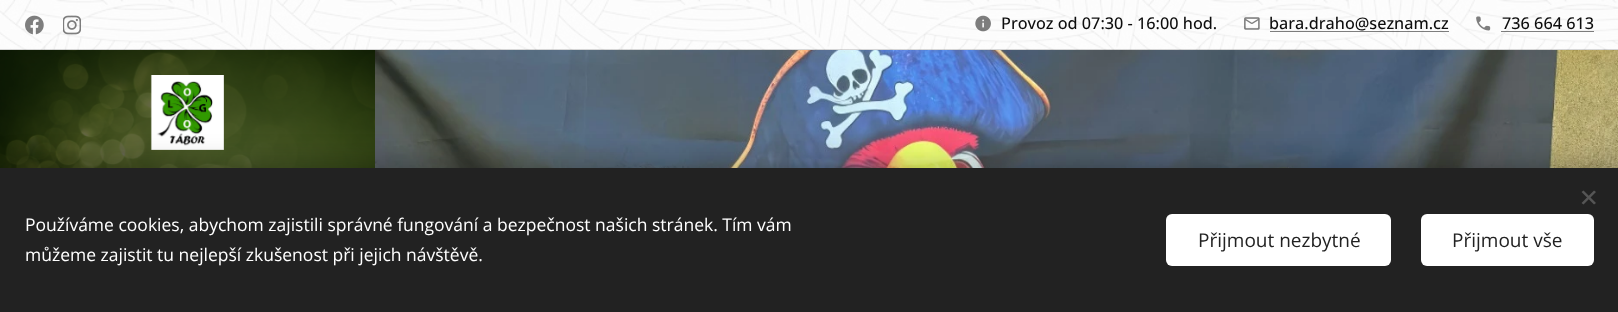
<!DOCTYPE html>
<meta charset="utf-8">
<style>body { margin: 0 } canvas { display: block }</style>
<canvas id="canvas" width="1618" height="312"></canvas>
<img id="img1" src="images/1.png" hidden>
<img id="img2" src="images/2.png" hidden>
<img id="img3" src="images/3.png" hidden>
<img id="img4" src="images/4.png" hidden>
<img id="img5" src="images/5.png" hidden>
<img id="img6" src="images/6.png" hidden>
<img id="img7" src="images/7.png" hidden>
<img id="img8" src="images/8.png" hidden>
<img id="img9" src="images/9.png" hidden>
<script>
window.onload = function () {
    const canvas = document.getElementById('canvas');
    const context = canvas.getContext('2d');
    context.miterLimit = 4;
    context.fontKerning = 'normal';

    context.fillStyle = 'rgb(255, 255, 255)';
    context.fillRect(0, 0, 1618, 312);
    context.drawImage(document.getElementById('img1'), 0, 0, 1618, 50);
    context.drawImage(document.getElementById('img2'), 25, 15, 19, 20);
    context.drawImage(document.getElementById('img3'), 63, 15, 18, 20);
    context.drawImage(document.getElementById('img4'), 975, 15, 16, 17);
    context.drawImage(document.getElementById('img5'), 1244, 17, 16, 13);
    context.fillStyle = 'rgba(0, 0, 0, 0.5)';
    context.fillRect(1270, 31, 179, 1);
    context.drawImage(document.getElementById('img6'), 1476, 16, 15, 15);
    context.fillRect(1501, 31, 93, 1);
    context.fillStyle = 'rgba(0, 0, 0, 0.15)';
    context.fillRect(0, 49, 1618, 1);
    context.drawImage(document.getElementById('img7'), 0, 50, 375, 118);
    context.drawImage(document.getElementById('img8'), 150, 75, 74, 75);
    context.drawImage(document.getElementById('img9'), 375, 50, 1243, 118);
    context.fillStyle = 'rgba(0, 0, 0, 0.33)';
    context.filter = 'blur(15.5px)';
    context.beginPath();
    context.rect(0, 168, 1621, 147);
    context.fill();
    context.filter = 'none';
    context.fillStyle = 'rgb(34, 34, 34)';
    context.fillRect(0, 168, 1618, 144);
    context.fillStyle = 'rgb(85, 85, 85)';
    context.beginPath();
    context.moveTo(1581.5, 203);
    context.lineTo(1594, 190.5);
    context.lineTo(1596, 192);
    context.lineTo(1583.5, 204.5);
    context.closePath();
    context.fill();
    context.beginPath();
    context.moveTo(1583.5, 190.5);
    context.lineTo(1596, 203);
    context.lineTo(1594, 204.5);
    context.lineTo(1581.5, 192);
    context.closePath();
    context.fill();
    context.fillStyle = 'rgb(255, 255, 255)';
    context.beginPath();
    context.roundRect(1166, 214, 225, 52, 6);
    context.fill();
    context.beginPath();
    context.roundRect(1421, 214, 173, 52, 6);
    context.fill();
    context.font = '500 16.25px Open Sans';
    context.fillStyle = 'rgb(13, 13, 13)';
    context.fillText('Provoz od 07:30 - 16:00 hod.', 1001, 29);
    context.fillText('bara.draho@seznam.cz', 1269, 29);
    context.fillText('736 664 613', 1502, 29);
    context.font = '17.5px Open Sans';
    context.fillStyle = 'rgb(255, 255, 255)';
    context.fillText('Používáme cookies, abychom zajistili správné fungování a bezpečnost našich stránek. Tím vám', 25, 231);
    context.fillText('můžeme zajistit tu nejlepší zkušenost při jejich návštěvě.', 25, 261);
    context.font = '19px Open Sans';
    context.fillStyle = 'rgb(34, 34, 34)';
    context.fillText('Přijmout nezbytné', 1198, 247);
    context.fillText('Přijmout vše', 1452, 247);
};
</script>
